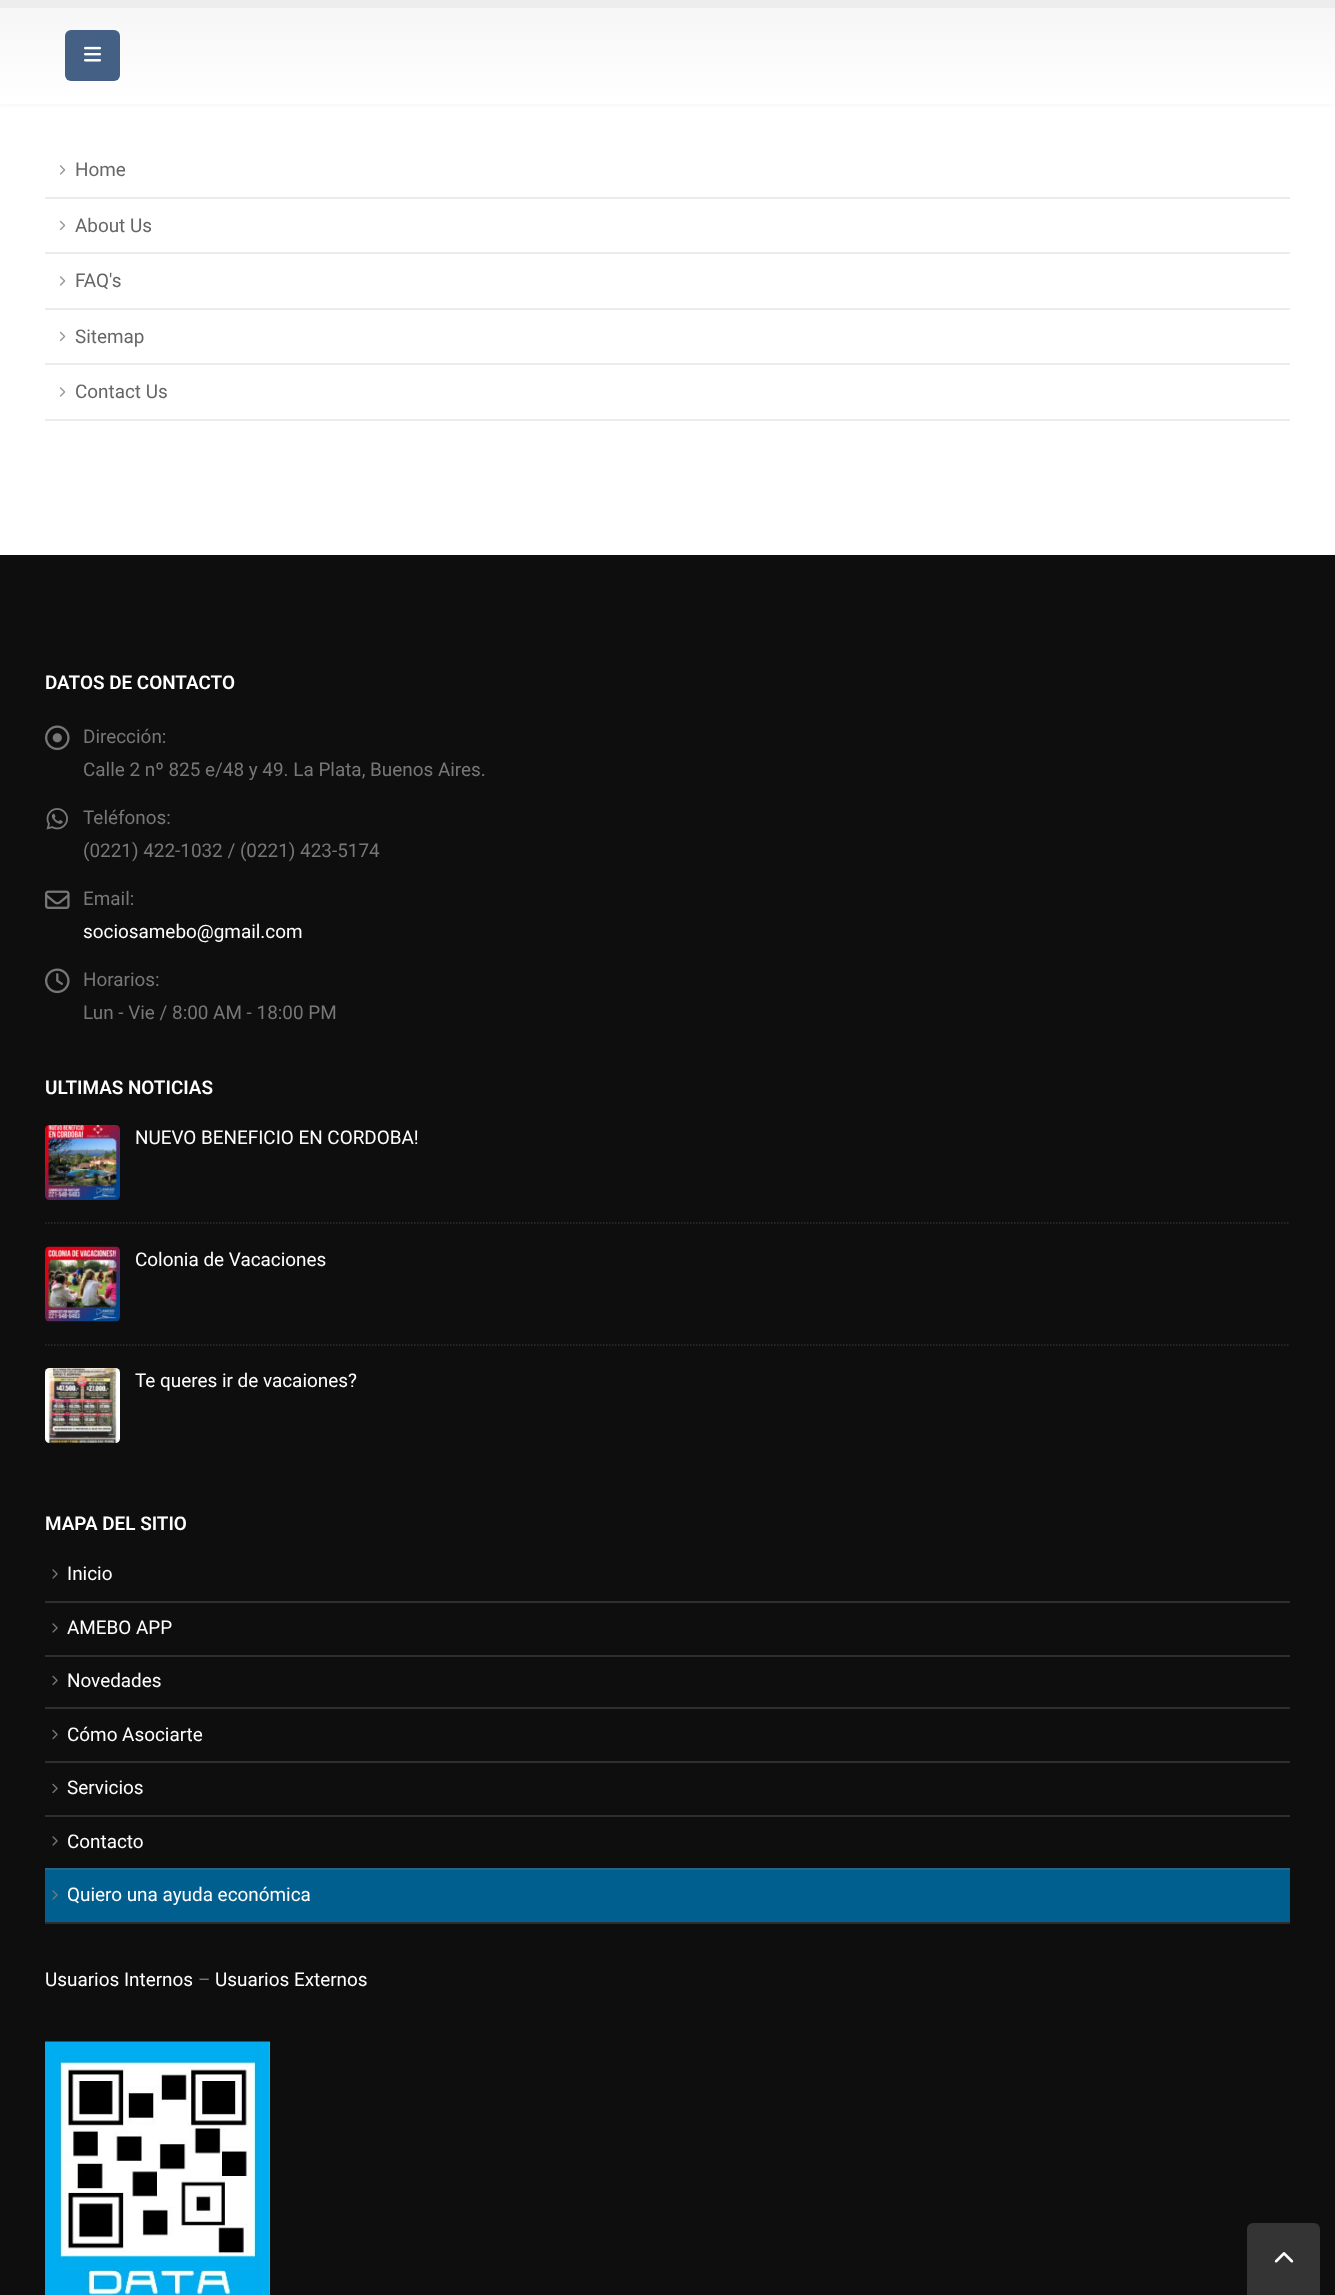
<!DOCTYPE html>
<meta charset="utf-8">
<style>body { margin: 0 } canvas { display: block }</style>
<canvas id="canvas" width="1335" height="2295"></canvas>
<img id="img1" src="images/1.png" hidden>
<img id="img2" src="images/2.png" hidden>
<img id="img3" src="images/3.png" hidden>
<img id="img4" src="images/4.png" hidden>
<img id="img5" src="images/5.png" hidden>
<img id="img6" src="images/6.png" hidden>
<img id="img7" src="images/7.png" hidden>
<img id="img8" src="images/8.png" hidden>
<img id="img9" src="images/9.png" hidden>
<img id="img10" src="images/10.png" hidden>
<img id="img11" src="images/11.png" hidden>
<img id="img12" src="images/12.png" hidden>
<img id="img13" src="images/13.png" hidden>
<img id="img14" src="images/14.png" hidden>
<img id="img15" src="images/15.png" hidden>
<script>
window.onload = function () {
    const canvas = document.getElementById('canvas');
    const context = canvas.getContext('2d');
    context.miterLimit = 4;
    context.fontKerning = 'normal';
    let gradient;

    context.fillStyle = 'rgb(255, 255, 255)';
    context.fillRect(0, 0, 1335, 2295);
    context.fillStyle = 'rgba(0, 0, 0, 0.06)';
    context.filter = 'blur(2px)';
    context.beginPath();
    context.rect(0, 0, 1335, 104);
    context.fill();
    context.filter = 'none';
    gradient = context.createLinearGradient(668, 7.5, 668, 104);
    gradient.addColorStop(0, 'rgb(246, 246, 246)');
    gradient.addColorStop(1, 'rgb(255, 255, 255)');
    context.fillStyle = gradient;
    context.fillRect(0, 8, 1335, 96);
    context.fillStyle = 'rgb(237, 237, 237)';
    context.fillRect(0, 0, 1335, 8);
    context.fillStyle = 'rgb(68, 96, 132)';
    context.beginPath();
    context.roundRect(65, 30, 55, 51, 6);
    context.fill();
    context.drawImage(document.getElementById('img1'), 84, 46, 17, 16);
    context.fillStyle = 'rgb(235, 235, 235)';
    context.fillRect(45, 197, 1245, 2);
    context.drawImage(document.getElementById('img2'), 59, 165, 7, 10);
    context.fillRect(45, 252, 1245, 2);
    context.drawImage(document.getElementById('img3'), 59, 220, 7, 11);
    context.fillRect(45, 308, 1245, 2);
    context.drawImage(document.getElementById('img2'), 59, 276, 7, 10);
    context.fillRect(45, 363, 1245, 2);
    context.drawImage(document.getElementById('img3'), 59, 331, 7, 11);
    context.fillRect(45, 419, 1245, 2);
    context.drawImage(document.getElementById('img2'), 59, 387, 7, 10);
    context.fillStyle = 'rgb(14, 14, 14)';
    context.fillRect(0, 555, 1335, 1740);
    context.drawImage(document.getElementById('img4'), 45, 725, 25, 26);
    context.drawImage(document.getElementById('img5'), 46, 808, 22, 22);
    context.drawImage(document.getElementById('img6'), 45, 890, 25, 19);
    context.drawImage(document.getElementById('img7'), 45, 968, 25, 26);
    context.drawImage(document.getElementById('img8'), 45, 1125, 75, 75);
    context.beginPath();
    context.moveTo(45, 1223);
    context.lineTo(1290, 1223);
    context.strokeStyle = 'rgb(46, 46, 46)';
    context.lineWidth = 1.5;
    context.setLineDash([1.5, 1.5]);
    context.stroke();
    context.drawImage(document.getElementById('img9'), 45, 1246, 75, 76);
    context.beginPath();
    context.moveTo(45, 1345);
    context.lineTo(1290, 1345);
    context.stroke();
    context.drawImage(document.getElementById('img10'), 45, 1368, 75, 75);
    context.fillStyle = 'rgb(46, 46, 46)';
    context.fillRect(45, 1922, 1245, 2);
    context.drawImage(document.getElementById('img11'), 52, 1569, 6, 10);
    context.fillRect(45, 1601, 1245, 2);
    context.drawImage(document.getElementById('img11'), 52, 1623, 6, 10);
    context.fillRect(45, 1655, 1245, 2);
    context.drawImage(document.getElementById('img12'), 52, 1675, 6, 11);
    context.fillRect(45, 1707, 1245, 2);
    context.drawImage(document.getElementById('img12'), 52, 1729, 6, 11);
    context.fillRect(45, 1761, 1245, 2);
    context.drawImage(document.getElementById('img12'), 52, 1783, 6, 11);
    context.fillRect(45, 1815, 1245, 2);
    context.drawImage(document.getElementById('img11'), 52, 1836, 6, 10);
    context.fillStyle = 'rgb(0, 95, 143)';
    context.fillRect(45, 1870, 1245, 52);
    context.fillStyle = 'rgb(36, 102, 136)';
    context.fillRect(45, 1868, 1245, 2);
    context.drawImage(document.getElementById('img13'), 52, 1890, 6, 10);
    context.drawImage(document.getElementById('img14'), 45, 2041, 225, 254);
    context.fillStyle = 'rgb(52, 52, 52)';
    context.beginPath();
    context.roundRect(1247, 2223, 73, 72, [6, 6, 0, 0]);
    context.fill();
    context.drawImage(document.getElementById('img15'), 1274, 2252, 20, 11);
    context.font = '18.9px Roboto';
    context.fillStyle = 'rgb(102, 102, 102)';
    context.fillText('Home', 75, 176);
    context.fillText('About Us', 75, 232);
    context.fillText('FAQ\'s', 75, 287);
    context.fillText('Sitemap', 75, 343);
    context.fillText('Contact Us', 75, 398);
    context.font = '600 18.9px Roboto';
    context.fillStyle = 'rgb(255, 255, 255)';
    context.fillText('DATOS DE CONTACTO', 45, 689);
    context.font = '18.9px Roboto';
    context.fillStyle = 'rgb(119, 119, 119)';
    context.fillText('Dirección:', 83, 743);
    context.fillText('Calle 2 nº 825 e/48 y 49. La Plata, Buenos Aires.', 83, 776);
    context.fillText('Teléfonos:', 83, 824);
    context.fillText('(0221) 422-1032 / (0221) 423-5174', 83, 857);
    context.fillText('Email:', 83, 905);
    context.fillStyle = 'rgb(255, 255, 255)';
    context.fillText('sociosamebo@gmail.com', 83, 938);
    context.fillStyle = 'rgb(119, 119, 119)';
    context.fillText('Horarios:', 83, 986);
    context.fillText('Lun - Vie / 8:00 AM - 18:00 PM', 83, 1019);
    context.font = '600 18.9px Roboto';
    context.fillStyle = 'rgb(255, 255, 255)';
    context.fillText('ULTIMAS NOTICIAS', 45, 1094);
    context.font = '18.9px Roboto';
    context.fillText('NUEVO BENEFICIO EN CORDOBA!', 135, 1144);
    context.fillText('Colonia de Vacaciones', 135, 1266);
    context.fillText('Te queres ir de vacaiones?', 135, 1387);
    context.font = '600 18.9px Roboto';
    context.fillText('MAPA DEL SITIO', 45, 1530);
    context.font = '18.9px Roboto';
    context.fillText('Inicio', 67, 1580);
    context.fillText('AMEBO APP', 67, 1634);
    context.fillText('Novedades', 67, 1687);
    context.fillText('Cómo Asociarte', 67, 1741);
    context.fillText('Servicios', 67, 1794);
    context.fillText('Contacto', 67, 1848);
    context.fillText('Quiero una ayuda económica', 67, 1901);
    context.fillText('Usuarios Internos', 45, 1986);
    context.fillStyle = 'rgb(119, 119, 119)';
    context.fillText('–', 198, 1986);
    context.fillStyle = 'rgb(255, 255, 255)';
    context.fillText('Usuarios Externos', 215, 1986);
};
</script>
